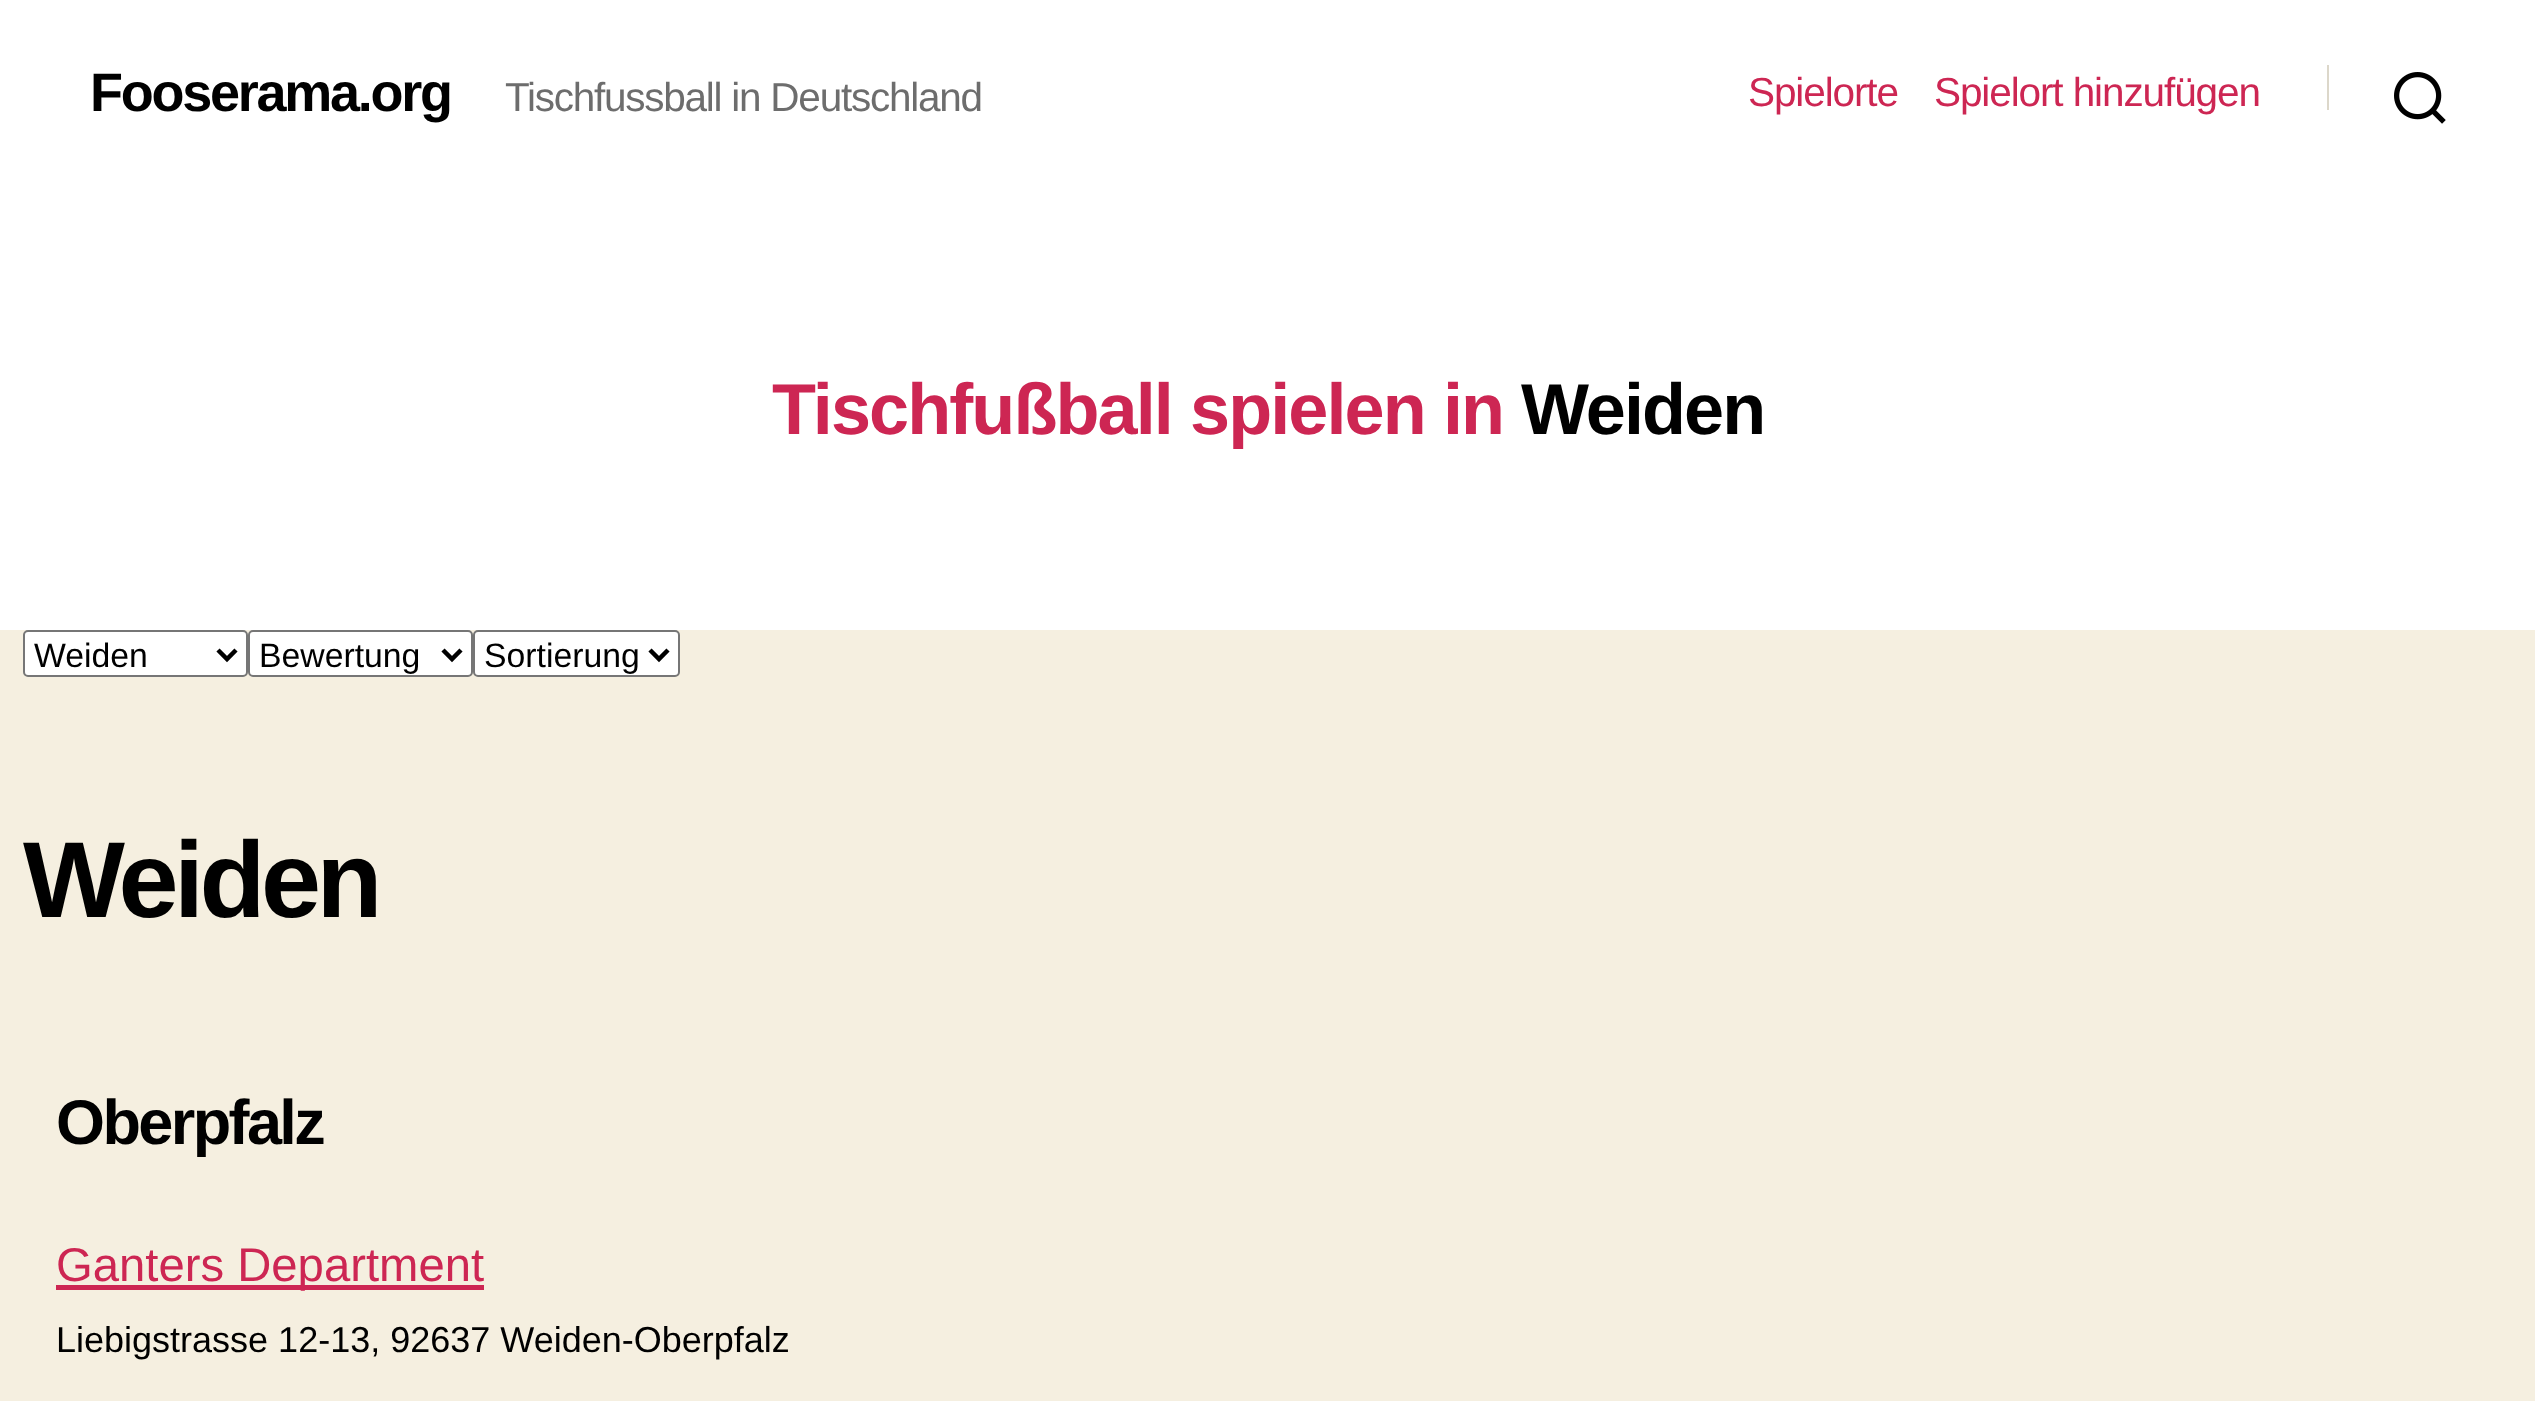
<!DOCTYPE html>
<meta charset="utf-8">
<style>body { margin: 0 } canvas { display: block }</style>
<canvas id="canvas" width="2535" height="1401"></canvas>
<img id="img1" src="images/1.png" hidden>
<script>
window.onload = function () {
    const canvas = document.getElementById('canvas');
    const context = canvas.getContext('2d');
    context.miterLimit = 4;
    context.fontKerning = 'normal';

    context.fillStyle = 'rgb(245, 239, 224)';
    context.fillRect(0, 0, 2535, 1401);
    context.fillStyle = 'rgb(255, 255, 255)';
    context.fillRect(0, 0, 2535, 630);
    context.fillStyle = 'rgb(220, 215, 202)';
    context.fillRect(2327, 65, 2, 45);
    context.drawImage(document.getElementById('img1'), 2394, 72, 52, 52);
    context.fillStyle = 'rgb(255, 255, 255)';
    context.beginPath();
    context.roundRect(24, 631, 223, 45, 4);
    context.fill();
    context.strokeStyle = 'rgb(118, 118, 118)';
    context.lineWidth = 2;
    context.stroke();
    context.beginPath();
    context.moveTo(218, 650);
    context.lineTo(227, 659);
    context.lineTo(236, 650);
    context.strokeStyle = 'rgb(0, 0, 0)';
    context.lineWidth = 4.5;
    context.stroke();
    context.beginPath();
    context.roundRect(249, 631, 223, 45, 4);
    context.fill();
    context.strokeStyle = 'rgb(118, 118, 118)';
    context.lineWidth = 2;
    context.stroke();
    context.beginPath();
    context.moveTo(443, 650);
    context.lineTo(452, 659);
    context.lineTo(461, 650);
    context.strokeStyle = 'rgb(0, 0, 0)';
    context.lineWidth = 4.5;
    context.stroke();
    context.beginPath();
    context.roundRect(474, 631, 205, 45, 4);
    context.fill();
    context.strokeStyle = 'rgb(118, 118, 118)';
    context.lineWidth = 2;
    context.stroke();
    context.beginPath();
    context.moveTo(650, 650);
    context.lineTo(659, 659);
    context.lineTo(668, 650);
    context.strokeStyle = 'rgb(0, 0, 0)';
    context.lineWidth = 4.5;
    context.stroke();
    context.fillStyle = 'rgb(205, 38, 83)';
    context.fillRect(56, 1285, 428, 5);
    context.letterSpacing = '-2.25px';
    context.font = 'bold 54px Liberation Sans';
    context.fillStyle = 'rgb(0, 0, 0)';
    context.fillText('Fooserama.org', 90, 111);
    context.letterSpacing = '-1.25px';
    context.font = '40.5px Liberation Sans';
    context.fillStyle = 'rgb(109, 109, 109)';
    context.fillText('Tischfussball in Deutschland', 505, 111);
    context.letterSpacing = '-1.1px';
    context.fillStyle = 'rgb(205, 38, 83)';
    context.fillText('Spielorte', 1748, 106);
    context.fillText('Spielort hinzufügen', 1934, 106);
    context.letterSpacing = '-1.9px';
    context.font = 'bold 72px Liberation Sans';
    context.fillText('Tischfußball spielen in', 772, 434);
    context.fillStyle = 'rgb(0, 0, 0)';
    context.fillText('Weiden', 1521, 434);
    context.letterSpacing = '0px';
    context.font = '33.75px Liberation Sans';
    context.fillText('Weiden', 34, 667);
    context.fillText('Bewertung', 259, 667);
    context.fillText('Sortierung', 484, 667);
    context.letterSpacing = '-4.5px';
    context.font = 'bold 108px Liberation Sans';
    context.fillText('Weiden', 23, 917);
    context.letterSpacing = '-2.6px';
    context.font = 'bold 63px Liberation Sans';
    context.fillText('Oberpfalz', 56, 1144);
    context.letterSpacing = '0px';
    context.font = '47.25px Liberation Sans';
    context.fillStyle = 'rgb(205, 38, 83)';
    context.fillText('Ganters Department', 56, 1281);
    context.font = '36px Liberation Sans';
    context.fillStyle = 'rgb(0, 0, 0)';
    context.fillText('Liebigstrasse 12-13, 92637 Weiden-Oberpfalz', 56, 1352);
};
</script>
